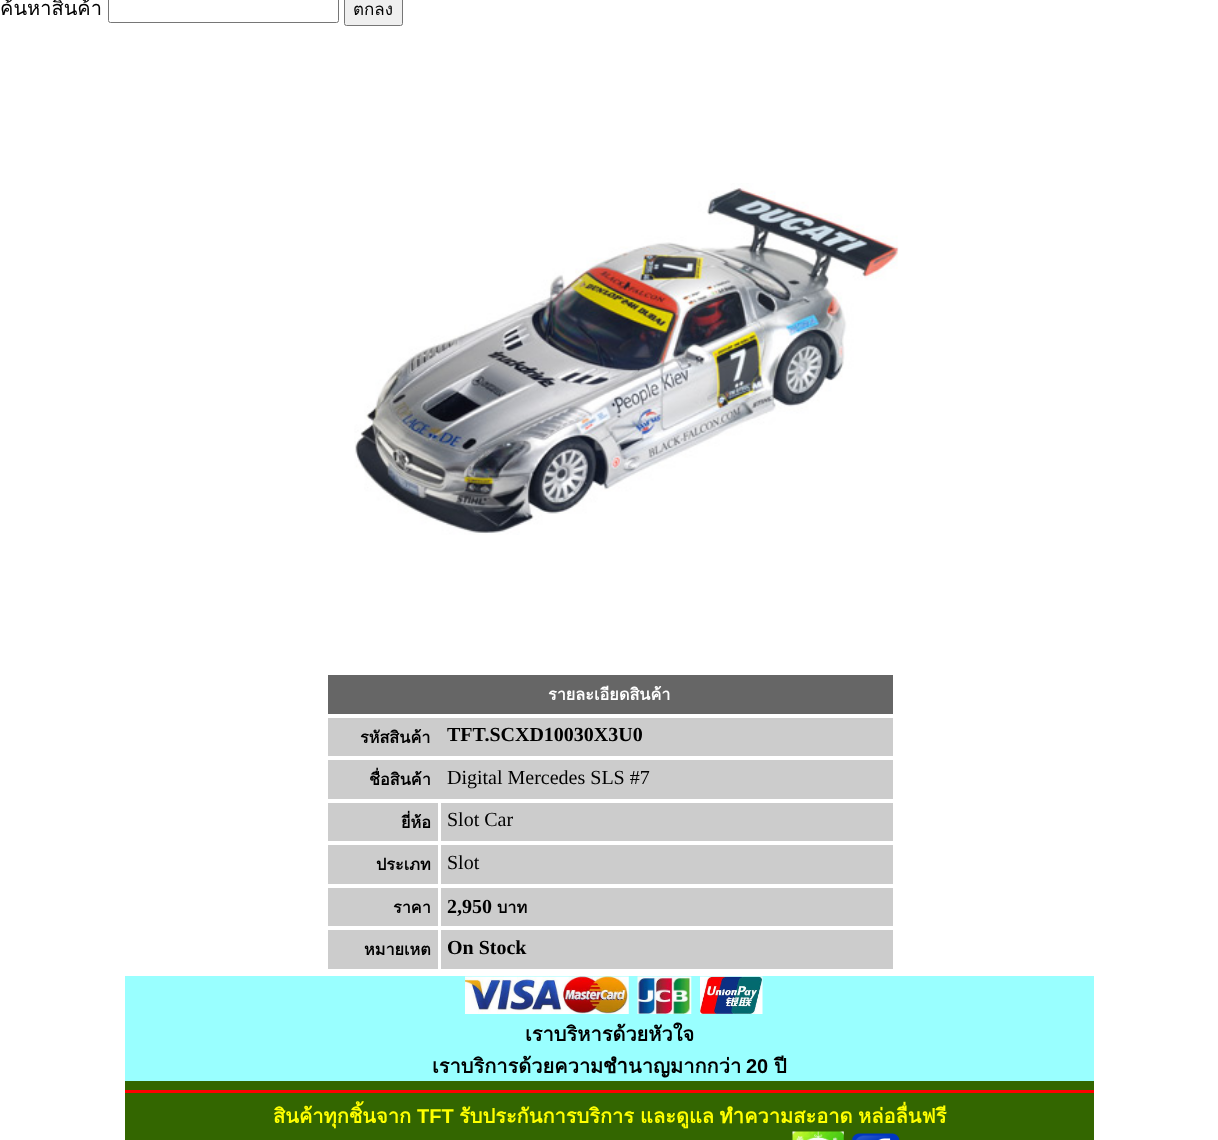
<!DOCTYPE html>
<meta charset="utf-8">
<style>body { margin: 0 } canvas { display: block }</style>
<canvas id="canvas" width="1218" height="1140"></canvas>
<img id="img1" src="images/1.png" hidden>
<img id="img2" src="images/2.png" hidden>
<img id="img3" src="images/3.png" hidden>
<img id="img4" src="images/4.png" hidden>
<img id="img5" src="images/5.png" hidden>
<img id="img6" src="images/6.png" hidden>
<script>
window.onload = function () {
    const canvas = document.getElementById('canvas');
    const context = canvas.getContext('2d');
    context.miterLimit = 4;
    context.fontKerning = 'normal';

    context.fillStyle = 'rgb(255, 255, 255)';
    context.fillRect(0, 0, 1218, 1140);
    context.beginPath();
    context.roundRect(108.5, -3.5, 230, 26, 2);
    context.strokeStyle = 'rgb(118, 118, 118)';
    context.stroke();
    context.fillStyle = 'rgb(239, 239, 239)';
    context.beginPath();
    context.roundRect(344.5, -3.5, 58, 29, 2);
    context.fill();
    context.stroke();
    context.drawImage(document.getElementById('img1'), 354, 183, 545, 352);
    context.fillStyle = 'rgb(102, 102, 102)';
    context.fillRect(328, 675, 565, 39);
    context.fillStyle = 'rgb(204, 204, 204)';
    context.fillRect(328, 718, 565, 38);
    context.fillRect(328, 760, 565, 39);
    context.fillRect(328, 803, 110, 38);
    context.fillRect(441, 803, 452, 38);
    context.fillRect(328, 845, 110, 39);
    context.fillRect(441, 845, 452, 39);
    context.fillRect(328, 888, 110, 38);
    context.fillRect(441, 888, 452, 38);
    context.fillRect(328, 930, 110, 39);
    context.fillRect(441, 930, 452, 39);
    context.fillStyle = 'rgb(153, 255, 255)';
    context.fillRect(125, 976, 969, 105);
    context.drawImage(document.getElementById('img2'), 465, 976, 164, 38);
    context.drawImage(document.getElementById('img3'), 637, 976, 55, 38);
    context.drawImage(document.getElementById('img4'), 700, 976, 63, 38);
    context.fillStyle = 'rgb(51, 102, 0)';
    context.fillRect(125, 1081, 969, 59);
    context.fillStyle = 'rgb(255, 0, 0)';
    context.fillRect(125, 1090, 969, 3);
    context.drawImage(document.getElementById('img5'), 792, 1131, 52, 9);
    context.drawImage(document.getElementById('img6'), 851, 1133, 49, 7);
    context.font = '20px Loma';
    context.fillStyle = 'rgb(0, 0, 0)';
    context.fillText('ค้นหาสินค้า', 0, 15);
    context.font = '17px Loma';
    context.fillText('ตกลง', 353, 15);
    context.font = 'bold 16.25px Loma';
    context.fillStyle = 'rgb(255, 255, 255)';
    context.fillText('รายละเอียดสินค้า', 548, 700);
    context.fillStyle = 'rgb(0, 0, 0)';
    context.fillText('รหัสสินค้า', 360, 743);
    context.font = 'bold 20px Liberation Serif';
    context.fillText('TFT.SCXD10030X3U0', 447, 741);
    context.font = 'bold 16.25px Loma';
    context.fillText('ชื่อสินค้า', 369, 785);
    context.font = '20px Liberation Serif';
    context.fillText('Digital Mercedes SLS #7', 447, 784);
    context.font = 'bold 16.25px Loma';
    context.fillText('ยี่ห้อ', 401, 828);
    context.font = '20px Liberation Serif';
    context.fillText('Slot Car', 447, 826);
    context.font = 'bold 16.25px Loma';
    context.fillText('ประเภท', 376, 870);
    context.font = '20px Liberation Serif';
    context.fillText('Slot', 447, 869);
    context.font = 'bold 16.25px Loma';
    context.fillText('ราคา', 393, 913);
    context.font = 'bold 20px Liberation Serif';
    context.fillText('2,950', 447, 913);
    context.font = 'bold 16.25px Loma';
    context.fillText('บาท', 497, 913);
    context.fillText('หมายเหต', 364, 955);
    context.font = 'bold 20px Liberation Serif';
    context.fillText('On Stock', 447, 954);
    context.font = 'bold 20px Loma';
    context.fillText('เราบริหารด้วยหัวใจ', 525, 1041);
    context.fillText('เราบริการด้วยความชำนาญมากกว่า', 432, 1073);
    context.font = 'bold 20px Liberation Sans';
    context.fillText('20', 746, 1073);
    context.font = 'bold 20px Loma';
    context.fillText('ปี', 774, 1073);
    context.fillStyle = 'rgb(255, 255, 0)';
    context.fillText('สินค้าทุกชิ้นจาก', 273, 1123);
    context.font = 'bold 20px Liberation Sans';
    context.fillText('TFT', 417, 1123);
    context.font = 'bold 20px Loma';
    context.fillText('รับประกันการบริการ', 459, 1123);
    context.wordSpacing = '-1px';
    context.fillText('และดูแล ทำความสะอาด หล่อลื่นฟรี', 640, 1123);
};
</script>
